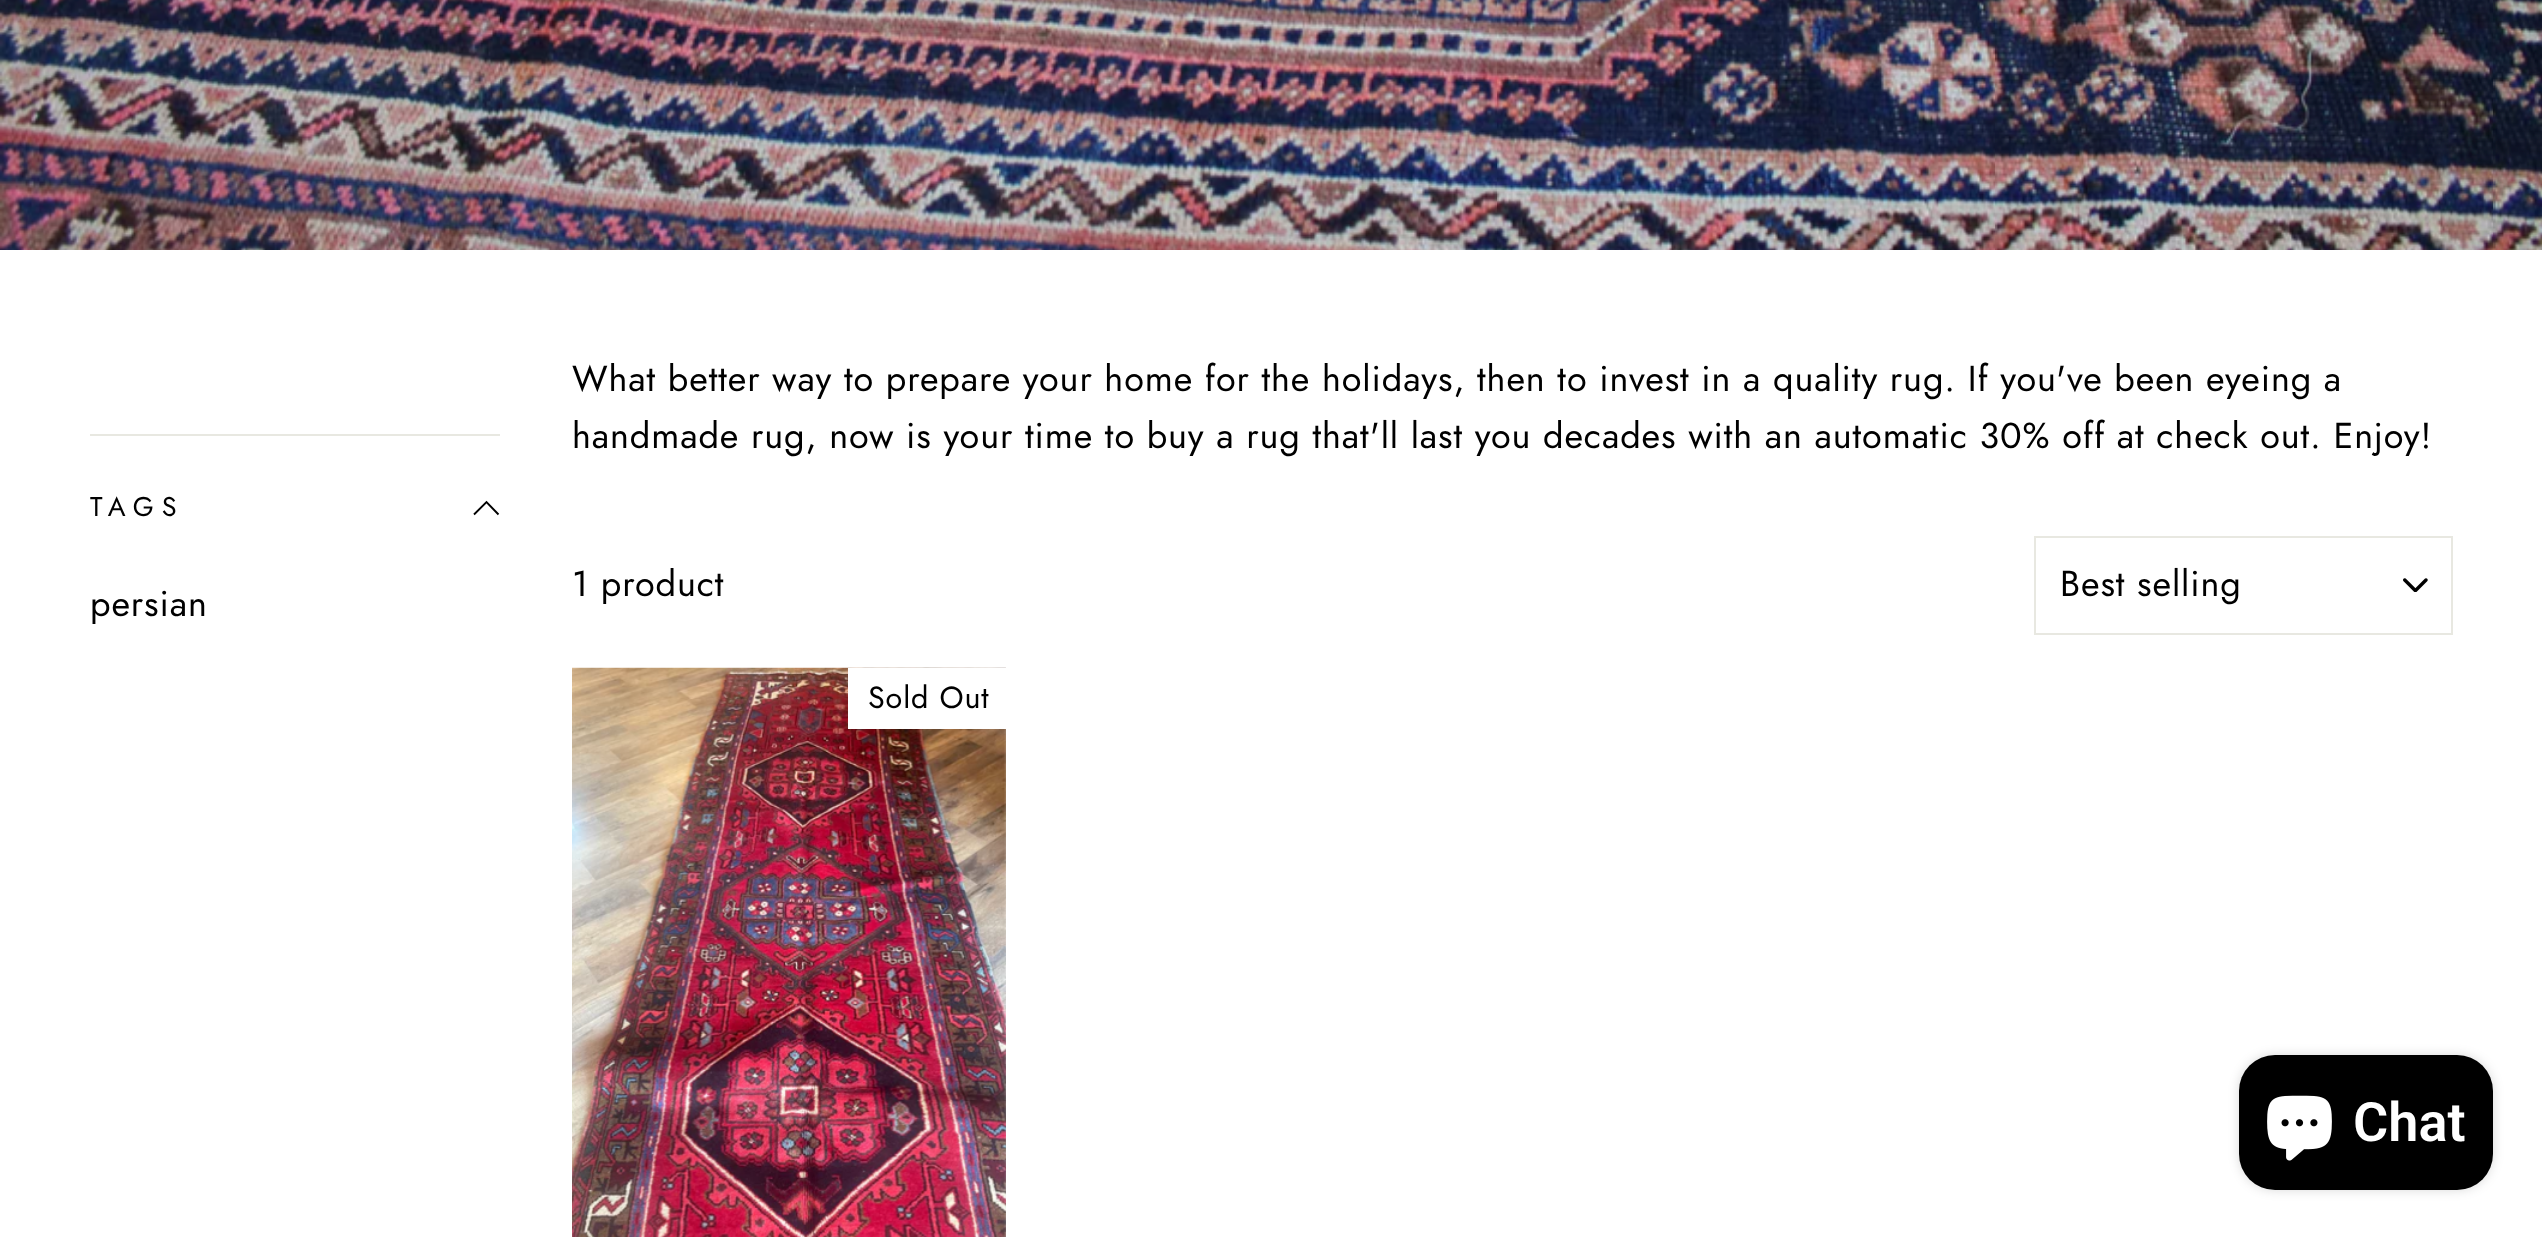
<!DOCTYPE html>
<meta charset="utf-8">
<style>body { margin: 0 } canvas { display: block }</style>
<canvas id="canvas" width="2542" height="1237"></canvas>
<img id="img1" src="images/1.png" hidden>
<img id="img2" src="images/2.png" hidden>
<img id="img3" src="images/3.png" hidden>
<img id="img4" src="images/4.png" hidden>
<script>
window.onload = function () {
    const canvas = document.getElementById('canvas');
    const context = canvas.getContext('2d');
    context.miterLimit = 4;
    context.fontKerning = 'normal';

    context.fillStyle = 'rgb(255, 255, 255)';
    context.fillRect(0, 0, 2542, 1237);
    context.drawImage(document.getElementById('img1'), 0, 0, 2542, 250);
    context.fillStyle = 'rgb(232, 232, 225)';
    context.fillRect(90, 434, 410, 2);
    context.beginPath();
    context.moveTo(474, 514.5);
    context.lineTo(486.5, 502);
    context.lineTo(498.5, 514.5);
    context.strokeStyle = 'rgb(0, 0, 0)';
    context.lineWidth = 1.9;
    context.stroke();
    context.drawImage(document.getElementById('img2'), 2403, 578, 25, 14);
    context.strokeStyle = 'rgb(232, 232, 225)';
    context.lineWidth = 2;
    context.strokeRect(2035, 537, 417, 97);
    context.drawImage(document.getElementById('img3'), 572, 667, 434, 570);
    context.fillStyle = 'rgb(255, 255, 255)';
    context.fillRect(848, 668, 158, 61);
    context.fillStyle = 'rgba(0, 0, 0, 0.15)';
    context.filter = 'blur(5.5px)';
    context.beginPath();
    context.roundRect(2239, 1055, 254, 135, 36);
    context.fill();
    context.filter = 'none';
    context.fillStyle = 'rgb(0, 0, 0)';
    context.beginPath();
    context.roundRect(2239, 1055, 254, 135, 36);
    context.fill();
    context.drawImage(document.getElementById('img4'), 2267, 1095, 65, 66);
    context.letterSpacing = '8px';
    context.font = '27px Jost';
    context.fillText('TAGS', 90, 516);
    context.letterSpacing = '0.9px';
    context.font = '36px Jost';
    context.fillText('persian', 90, 616);
    context.fillText('What better way to prepare your home for the holidays, then to invest in a quality rug. If you\'ve been eyeing a', 572, 391);
    context.fillText('handmade rug, now is your time to buy a rug that\'ll last you decades with an automatic 30% off at check out. Enjoy!', 572, 448);
    context.fillText('1 product', 572, 596);
    context.fillText('Best selling', 2060, 596);
    context.font = '30.5px Jost';
    context.fillText('Sold Out', 868, 708);
    context.letterSpacing = '0px';
    context.font = '600 54px Roboto';
    context.fillStyle = 'rgb(255, 255, 255)';
    context.fillText('Chat', 2353, 1141);
};
</script>
